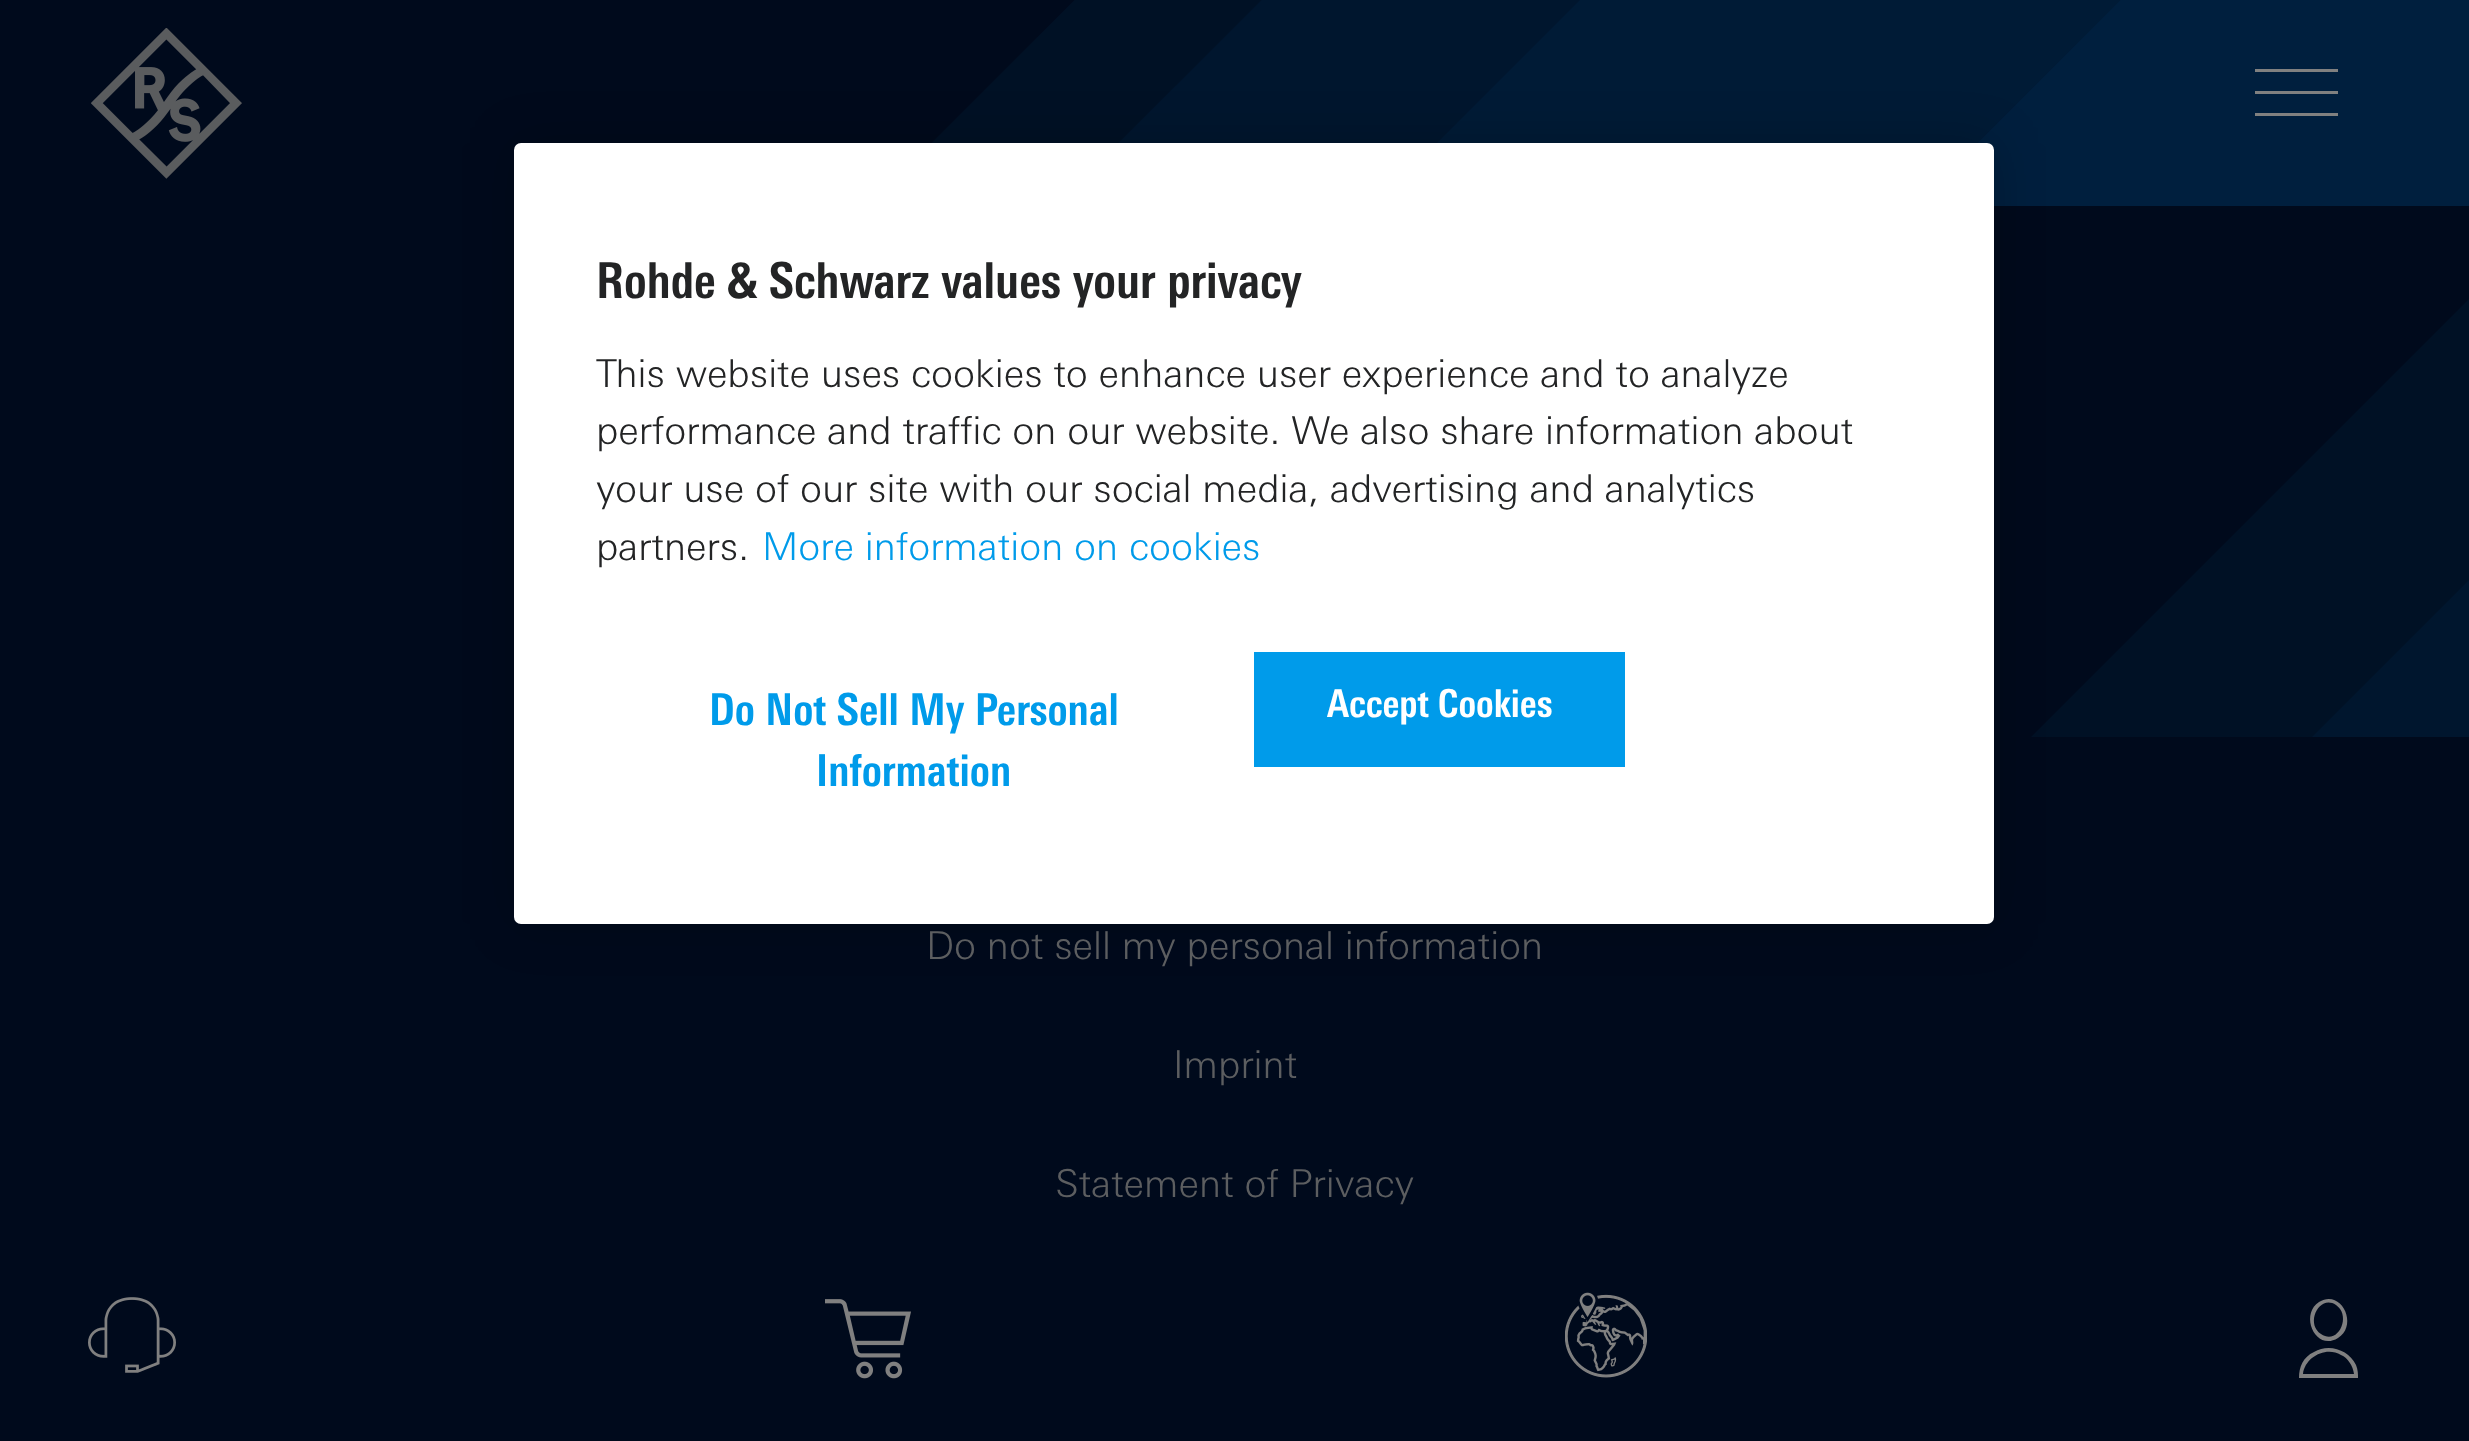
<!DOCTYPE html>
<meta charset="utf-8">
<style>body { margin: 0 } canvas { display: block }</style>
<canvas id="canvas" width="2469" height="1441"></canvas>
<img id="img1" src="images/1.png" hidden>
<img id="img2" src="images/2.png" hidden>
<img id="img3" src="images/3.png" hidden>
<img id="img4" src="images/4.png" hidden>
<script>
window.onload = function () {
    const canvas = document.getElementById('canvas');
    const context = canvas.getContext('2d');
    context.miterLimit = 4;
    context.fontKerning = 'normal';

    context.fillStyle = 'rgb(0, 10, 28)';
    context.fillRect(0, 0, 2469, 1441);
    context.save();
    context.beginPath();
    context.rect(0, 0, 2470, 206);
    context.clip();
    context.fillStyle = 'rgb(0, 17, 37)';
    context.beginPath();
    context.moveTo(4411, 594);
    context.lineTo(2446, -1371);
    context.lineTo(480, 594);
    context.lineTo(2446, 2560);
    context.closePath();
    context.fill();
    context.fillStyle = 'rgb(0, 22, 46)';
    context.beginPath();
    context.moveTo(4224, 594);
    context.lineTo(2446, -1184);
    context.lineTo(667, 594);
    context.lineTo(2446, 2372);
    context.closePath();
    context.fill();
    context.fillStyle = 'rgb(0, 27, 54)';
    context.beginPath();
    context.moveTo(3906, 594);
    context.lineTo(2446, -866);
    context.lineTo(986, 594);
    context.lineTo(2446, 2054);
    context.closePath();
    context.fill();
    context.fillStyle = 'rgb(0, 31, 62)';
    context.beginPath();
    context.moveTo(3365, 594);
    context.lineTo(2446, -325);
    context.lineTo(1526, 594);
    context.lineTo(2446, 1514);
    context.closePath();
    context.fill();
    context.restore();
    context.drawImage(document.getElementById('img1'), 91, 28, 151, 151);
    context.fillStyle = 'rgb(128, 128, 128)';
    context.beginPath();
    context.moveTo(2338, 69);
    context.lineTo(2338, 72);
    context.lineTo(2255, 72);
    context.lineTo(2255, 69);
    context.closePath();
    context.moveTo(2338, 91);
    context.lineTo(2338, 94);
    context.lineTo(2255, 94);
    context.lineTo(2255, 91);
    context.closePath();
    context.moveTo(2338, 113);
    context.lineTo(2338, 116);
    context.lineTo(2255, 116);
    context.lineTo(2255, 113);
    context.closePath();
    context.fill();
    context.fillStyle = 'rgb(0, 17, 37)';
    context.beginPath();
    context.moveTo(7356, 1308);
    context.lineTo(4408, -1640);
    context.lineTo(1460, 1308);
    context.lineTo(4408, 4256);
    context.closePath();
    context.fill();
    context.fillStyle = 'rgb(0, 22, 46)';
    context.beginPath();
    context.moveTo(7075, 1308);
    context.lineTo(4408, -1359);
    context.lineTo(1741, 1308);
    context.lineTo(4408, 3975);
    context.closePath();
    context.fill();
    context.fillStyle = 'rgb(0, 10, 28)';
    context.fillRect(1460, 1240, 1009, 201);
    context.drawImage(document.getElementById('img2'), 88, 1297, 88, 76);
    context.drawImage(document.getElementById('img3'), 825, 1299, 86, 80);
    context.drawImage(document.getElementById('img4'), 1565, 1292, 82, 86);
    context.fillStyle = 'rgb(128, 128, 128)';
    context.beginPath();
    context.moveTo(2319, 1302);
    context.bezierCurveTo(2299, 1315, 2316, 1352, 2338, 1338);
    context.bezierCurveTo(2359, 1325, 2341, 1288, 2319, 1302);
    context.closePath();
    context.moveTo(2336, 1305);
    context.bezierCurveTo(2352, 1316, 2338, 1346, 2321, 1334);
    context.bezierCurveTo(2305, 1324, 2319, 1294, 2336, 1305);
    context.closePath();
    context.moveTo(2314, 1352);
    context.bezierCurveTo(2303, 1357, 2299, 1367, 2299, 1378);
    context.lineTo(2358, 1378);
    context.bezierCurveTo(2358, 1374, 2358, 1370, 2356, 1365);
    context.bezierCurveTo(2349, 1350, 2329, 1343, 2314, 1352);
    context.closePath();
    context.moveTo(2341, 1355);
    context.bezierCurveTo(2348, 1358, 2353, 1366, 2354, 1374);
    context.lineTo(2303, 1374);
    context.bezierCurveTo(2305, 1357, 2326, 1346, 2341, 1355);
    context.closePath();
    context.fill();
    context.fillStyle = 'rgb(0, 10, 28)';
    context.fillRect(1528, 737, 941, 503);
    context.fillStyle = 'rgba(0, 0, 0, 0.2)';
    context.filter = 'blur(25px)';
    context.beginPath();
    context.roundRect(514, 143, 1480, 781, 7);
    context.fill();
    context.filter = 'none';
    context.fillStyle = 'rgb(255, 255, 255)';
    context.beginPath();
    context.roundRect(514, 143, 1480, 781, 7);
    context.fill();
    context.fillStyle = 'rgb(0, 155, 234)';
    context.fillRect(1254, 652, 371, 115);
    context.font = 'bold 49.5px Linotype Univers';
    context.fillStyle = 'rgb(35, 36, 37)';
    context.fillText('Rohde & Schwarz values your privacy', 596, 298);
    context.font = '300 38.5px Linotype Univers';
    context.fillText('This website uses cookies to enhance user experience and to analyze', 596, 387);
    context.fillText('performance and traffic on our website. We also share information about', 596, 444);
    context.fillText('your use of our site with our social media, advertising and analytics', 596, 502);
    context.fillText('partners.', 596, 560);
    context.fillStyle = 'rgb(0, 155, 234)';
    context.fillText('More information on cookies', 762, 560);
    context.font = 'bold 44px Linotype Univers';
    context.fillText('Do Not Sell My Personal', 709, 725);
    context.fillText('Information', 816, 786);
    context.font = 'bold 38.5px Linotype Univers';
    context.fillStyle = 'rgb(255, 255, 255)';
    context.fillText('Accept Cookies', 1327, 717);
    context.font = '300 38.5px Linotype Univers';
    context.fillStyle = 'rgb(92, 94, 96)';
    context.fillText('Do not sell my personal information', 926, 959);
    context.fillText('Imprint', 1173, 1078);
    context.fillText('Statement of Privacy', 1055, 1197);
};
</script>
